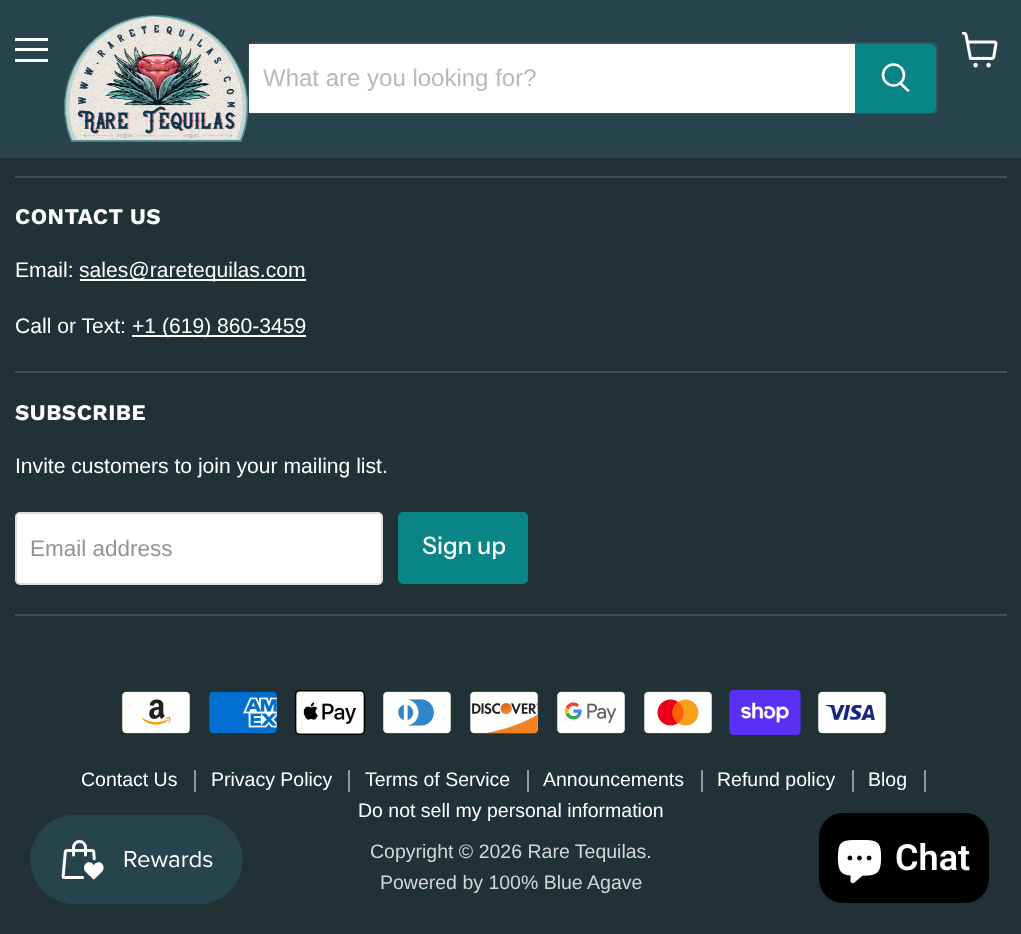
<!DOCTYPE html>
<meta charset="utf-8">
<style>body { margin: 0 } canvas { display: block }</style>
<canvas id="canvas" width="1021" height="934"></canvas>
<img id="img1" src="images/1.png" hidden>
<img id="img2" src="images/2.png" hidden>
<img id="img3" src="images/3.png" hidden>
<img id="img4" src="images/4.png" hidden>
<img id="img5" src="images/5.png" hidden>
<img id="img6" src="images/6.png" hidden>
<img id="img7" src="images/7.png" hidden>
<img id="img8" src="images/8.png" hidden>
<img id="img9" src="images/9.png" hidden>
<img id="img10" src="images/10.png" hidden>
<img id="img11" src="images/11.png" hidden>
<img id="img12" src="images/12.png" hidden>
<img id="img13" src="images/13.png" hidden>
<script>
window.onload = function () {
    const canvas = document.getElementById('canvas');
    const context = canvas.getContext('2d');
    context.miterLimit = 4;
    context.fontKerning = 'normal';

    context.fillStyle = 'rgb(33, 50, 54)';
    context.fillRect(0, 0, 1021, 934);
    context.fillStyle = 'rgb(39, 68, 76)';
    context.fillRect(0, 0, 1021, 158);
    context.fillStyle = 'rgb(255, 255, 255)';
    context.fillRect(15, 38, 33, 3);
    context.fillRect(15, 48, 33, 3);
    context.fillRect(15, 59, 33, 3);
    context.drawImage(document.getElementById('img1'), 962, 32, 36, 36);
    context.drawImage(document.getElementById('img2'), 64, 15, 185, 127);
    context.beginPath();
    context.roundRect(249, 43, 688, 70, 5);
    context.strokeStyle = 'rgba(128, 128, 128, 0.2)';
    context.lineWidth = 2;
    context.stroke();
    context.fillRect(249, 44, 606, 69);
    context.fillStyle = 'rgb(9, 132, 135)';
    context.beginPath();
    context.roundRect(856, 45, 79, 67, [0, 4, 4, 0]);
    context.fill();
    context.strokeStyle = 'rgb(9, 132, 135)';
    context.stroke();
    context.beginPath();
    context.moveTo(908, 90.5);
    context.lineTo(900.5, 83.5);
    context.strokeStyle = 'rgb(255, 255, 255)';
    context.lineWidth = 2.6;
    context.lineCap = 'round';
    context.stroke();
    context.beginPath();
    context.arc(893.5, 75, 10.5, 0, 2 * Math.PI);
    context.stroke();
    context.fillStyle = 'rgb(66, 81, 84)';
    context.fillRect(15, 176, 992, 2);
    context.fillRect(15, 371, 992, 2);
    context.fillStyle = 'rgb(255, 255, 255)';
    context.fillRect(80, 279, 226, 2);
    context.fillRect(132, 335, 174, 2);
    context.fillStyle = 'rgb(66, 81, 84)';
    context.fillRect(15, 614, 992, 2);
    context.fillStyle = 'rgb(255, 255, 255)';
    context.beginPath();
    context.roundRect(16, 513, 366, 71, 4);
    context.fill();
    context.strokeStyle = 'rgb(221, 221, 221)';
    context.lineWidth = 2;
    context.stroke();
    context.fillStyle = 'rgb(9, 132, 135)';
    context.beginPath();
    context.roundRect(399, 513, 128, 70, 4);
    context.fill();
    context.strokeStyle = 'rgb(9, 132, 135)';
    context.stroke();
    context.drawImage(document.getElementById('img3'), 122, 691, 68, 43);
    context.drawImage(document.getElementById('img4'), 209, 691, 68, 43);
    context.drawImage(document.getElementById('img5'), 294, 690, 72, 45);
    context.drawImage(document.getElementById('img6'), 383, 691, 68, 43);
    context.drawImage(document.getElementById('img7'), 470, 691, 68, 43);
    context.drawImage(document.getElementById('img8'), 557, 691, 68, 43);
    context.drawImage(document.getElementById('img9'), 644, 691, 68, 43);
    context.drawImage(document.getElementById('img10'), 729, 690, 72, 45);
    context.drawImage(document.getElementById('img11'), 818, 691, 68, 43);
    context.fillStyle = 'rgb(144, 153, 155)';
    context.fillRect(194, 770, 2, 22);
    context.fillRect(348, 770, 2, 22);
    context.fillRect(527, 770, 2, 22);
    context.fillRect(701, 770, 2, 22);
    context.fillRect(852, 770, 2, 22);
    context.fillRect(924, 770, 2, 22);
    context.drawImage(document.getElementById('img12'), 30, 815, 213, 89);
    context.fillStyle = 'rgb(0, 0, 0)';
    context.beginPath();
    context.roundRect(819, 813, 170, 90, 24);
    context.fill();
    context.drawImage(document.getElementById('img13'), 837, 840, 45, 44);
    context.font = '24px Liberation Sans';
    context.fillStyle = 'rgb(184, 184, 184)';
    context.fillText('What are you looking for?', 263, 86);
    context.letterSpacing = '0.5px';
    context.font = 'bold 22.25px Work Sans';
    context.fillStyle = 'rgb(255, 255, 255)';
    context.fillText('CONTACT US', 15, 224);
    context.letterSpacing = '0px';
    context.font = '21.1px Liberation Sans';
    context.fillText('Email:', 15, 277);
    context.fillText('sales@raretequilas.com', 79, 277);
    context.fillText('Call or Text:', 15, 333);
    context.fillText('+1 (619) 860-3459', 132, 333);
    context.letterSpacing = '0.5px';
    context.font = 'bold 22.25px Work Sans';
    context.fillText('SUBSCRIBE', 15, 420);
    context.letterSpacing = '0px';
    context.font = '21.1px Liberation Sans';
    context.fillText('Invite customers to join your mailing list.', 15, 473);
    context.font = '22.5px Liberation Sans';
    context.fillStyle = 'rgb(148, 148, 148)';
    context.fillText('Email address', 30, 556);
    context.font = '500 24px Instrument Sans';
    context.fillStyle = 'rgb(255, 255, 255)';
    context.fillText('Sign up', 422, 554);
    context.font = '19.5px Liberation Sans';
    context.fillText('Contact Us', 81, 786);
    context.fillText('Privacy Policy', 211, 786);
    context.fillText('Terms of Service', 365, 786);
    context.fillText('Announcements', 543, 786);
    context.fillText('Refund policy', 717, 786);
    context.fillText('Blog', 868, 786);
    context.fillText('Do not sell my personal information', 358, 817);
    context.fillStyle = 'rgb(211, 214, 215)';
    context.fillText('Copyright © 2026 Rare Tequilas.', 370, 858);
    context.fillText('Powered by 100% Blue Agave', 380, 889);
    context.font = '600 36px Roboto';
    context.fillStyle = 'rgb(255, 255, 255)';
    context.fillText('Chat', 895, 870);
};
</script>
